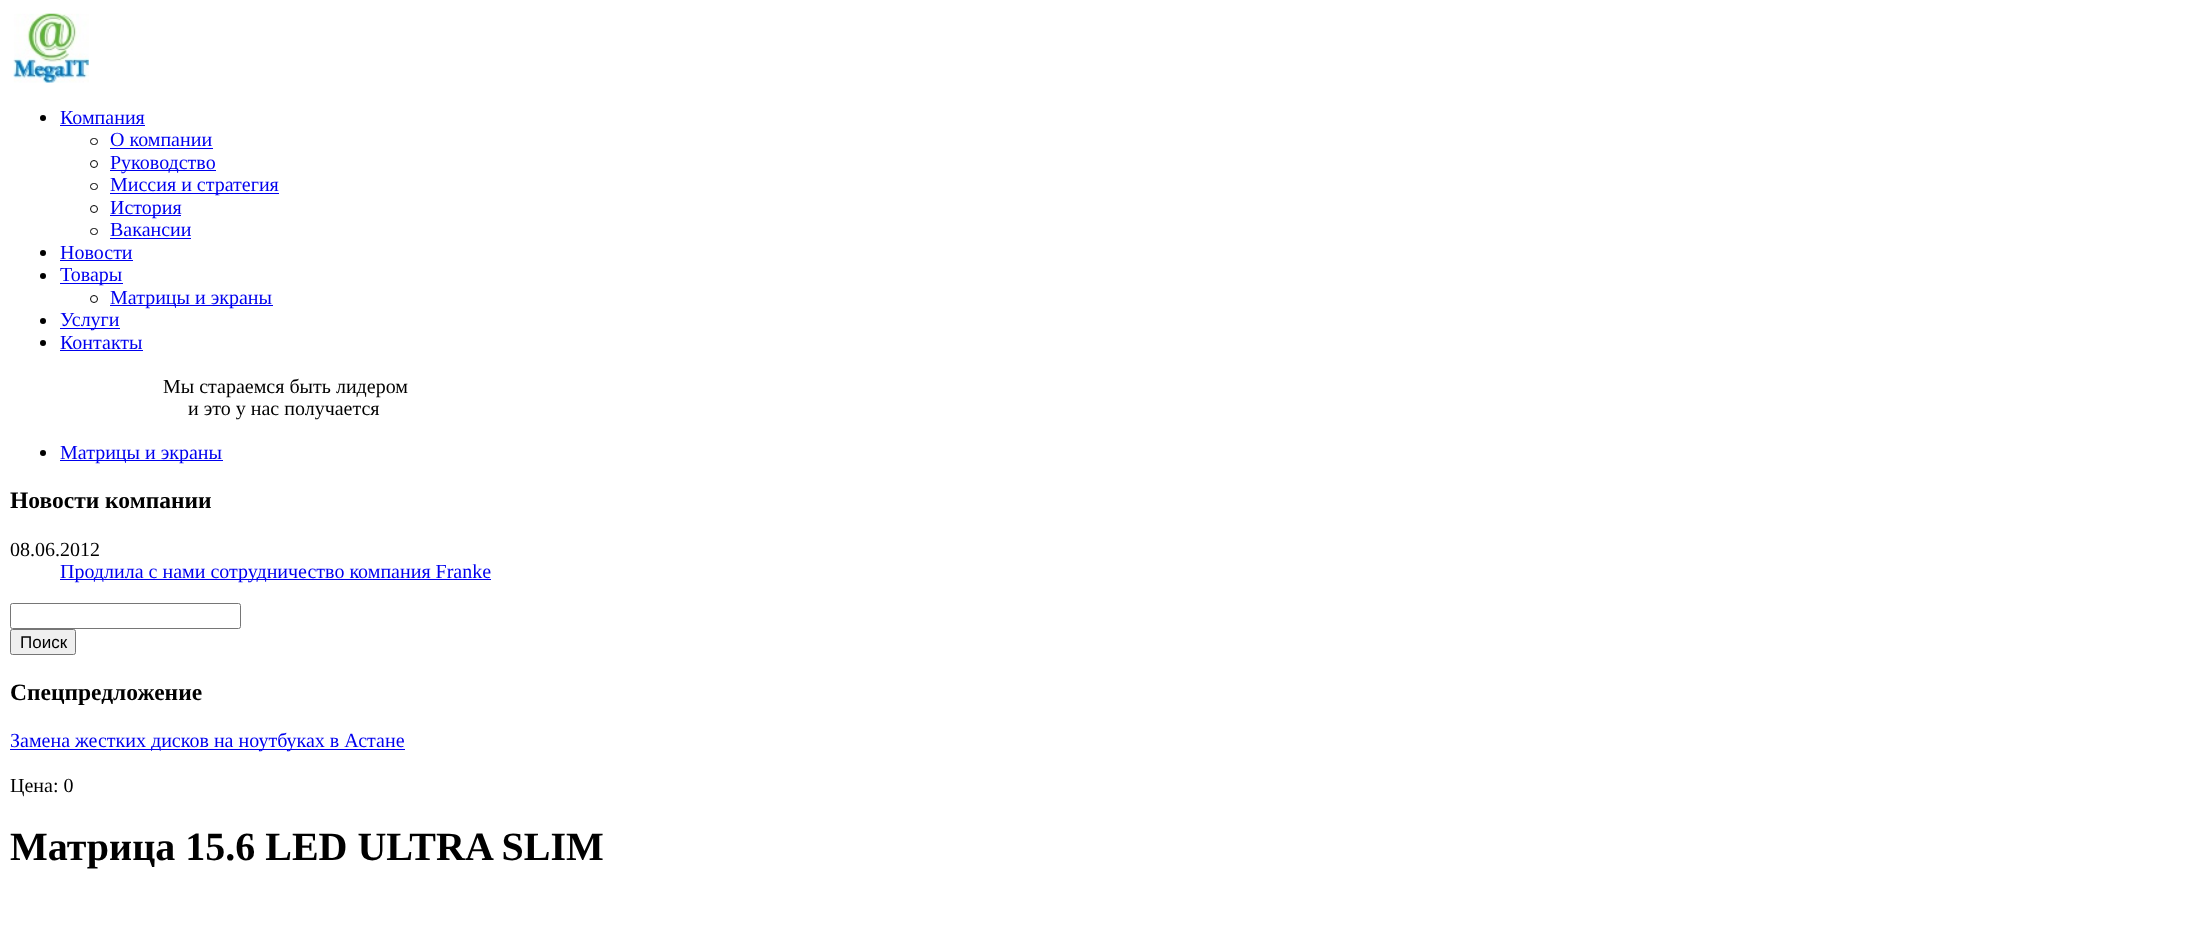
<!DOCTYPE html>
<meta charset="utf-8">
<style>body { margin: 0 } canvas { display: block }</style>
<canvas id="canvas" width="2185" height="932"></canvas>
<img id="img1" src="images/1.png" hidden>
<script>
window.onload = function () {
    const canvas = document.getElementById('canvas');
    const context = canvas.getContext('2d');
    context.miterLimit = 4;
    context.fontKerning = 'normal';

    context.fillStyle = 'rgb(255, 255, 255)';
    context.fillRect(0, 0, 2185, 932);
    context.drawImage(document.getElementById('img1'), 13, 13, 76, 70);
    context.fillStyle = 'rgb(0, 0, 0)';
    context.beginPath();
    context.arc(43, 118, 3, 0, 2 * Math.PI);
    context.fill();
    context.fillStyle = 'rgb(0, 0, 238)';
    context.fillRect(60, 125, 85, 1);
    context.beginPath();
    context.roundRect(90.5, 138.5, 7, 6, 3);
    context.strokeStyle = 'rgb(0, 0, 0)';
    context.stroke();
    context.fillRect(110, 148, 103, 1);
    context.beginPath();
    context.arc(94, 164, 3.5, 0, 2 * Math.PI);
    context.stroke();
    context.fillRect(110, 170, 106, 1);
    context.beginPath();
    context.roundRect(90.5, 183.5, 7, 6, 3);
    context.stroke();
    context.fillRect(110, 193, 169, 1);
    context.beginPath();
    context.arc(94, 209, 3.5, 0, 2 * Math.PI);
    context.stroke();
    context.fillRect(110, 215, 71, 1);
    context.beginPath();
    context.roundRect(90.5, 228.5, 7, 6, 3);
    context.stroke();
    context.fillRect(110, 238, 81, 1);
    context.fillStyle = 'rgb(0, 0, 0)';
    context.beginPath();
    context.arc(43, 253, 3, 0, 2 * Math.PI);
    context.fill();
    context.fillStyle = 'rgb(0, 0, 238)';
    context.fillRect(60, 260, 73, 1);
    context.fillStyle = 'rgb(0, 0, 0)';
    context.beginPath();
    context.arc(43, 276, 3, 0, 2 * Math.PI);
    context.fill();
    context.fillStyle = 'rgb(0, 0, 238)';
    context.fillRect(60, 283, 63, 1);
    context.beginPath();
    context.arc(94, 299, 3.5, 0, 2 * Math.PI);
    context.stroke();
    context.fillRect(110, 305, 163, 1);
    context.fillStyle = 'rgb(0, 0, 0)';
    context.beginPath();
    context.arc(43, 321, 3, 0, 2 * Math.PI);
    context.fill();
    context.fillStyle = 'rgb(0, 0, 238)';
    context.fillRect(60, 328, 60, 1);
    context.fillStyle = 'rgb(0, 0, 0)';
    context.beginPath();
    context.arc(43, 343, 3, 0, 2 * Math.PI);
    context.fill();
    context.fillStyle = 'rgb(0, 0, 238)';
    context.fillRect(60, 350, 83, 1);
    context.fillStyle = 'rgb(0, 0, 0)';
    context.beginPath();
    context.arc(43, 453, 3, 0, 2 * Math.PI);
    context.fill();
    context.fillStyle = 'rgb(0, 0, 238)';
    context.fillRect(60, 460, 163, 1);
    context.fillRect(60, 579, 431, 1);
    context.beginPath();
    context.roundRect(10.5, 603.5, 230, 25, 2);
    context.strokeStyle = 'rgb(118, 118, 118)';
    context.stroke();
    context.fillStyle = 'rgb(239, 239, 239)';
    context.beginPath();
    context.roundRect(10.5, 629.5, 65, 25, 2);
    context.fill();
    context.stroke();
    context.fillStyle = 'rgb(0, 0, 238)';
    context.fillRect(10, 749, 395, 1);
    context.font = '20px Liberation Serif';
    context.fillText('Компания', 60, 124);
    context.fillText('О компании', 110, 146);
    context.fillText('Руководство', 110, 169);
    context.fillText('Миссия и стратегия', 110, 191);
    context.fillText('История', 110, 214);
    context.fillText('Вакансии', 110, 236);
    context.fillText('Новости', 60, 259);
    context.fillText('Товары', 60, 281);
    context.fillText('Матрицы и экраны', 110, 304);
    context.fillText('Услуги', 60, 326);
    context.fillText('Контакты', 60, 349);
    context.fillStyle = 'rgb(0, 0, 0)';
    context.fillText('Мы стараемся быть лидером', 163, 393);
    context.fillText('и это у нас получается', 188, 415);
    context.fillStyle = 'rgb(0, 0, 238)';
    context.fillText('Матрицы и экраны', 60, 459);
    context.font = 'bold 23.5px Liberation Serif';
    context.fillStyle = 'rgb(0, 0, 0)';
    context.fillText('Новости компании', 10, 508);
    context.font = '20px Liberation Serif';
    context.fillText('08.06.2012', 10, 556);
    context.fillStyle = 'rgb(0, 0, 238)';
    context.fillText('Продлила с нами сотрудничество компания Franke', 60, 578);
    context.font = '17px Liberation Sans';
    context.fillStyle = 'rgb(0, 0, 0)';
    context.fillText('Поиск', 20, 648);
    context.font = 'bold 23.5px Liberation Serif';
    context.fillText('Спецпредложение', 10, 700);
    context.font = '20px Liberation Serif';
    context.fillStyle = 'rgb(0, 0, 238)';
    context.fillText('Замена жестких дисков на ноутбуках в Астане', 10, 747);
    context.fillStyle = 'rgb(0, 0, 0)';
    context.fillText('Цена: 0', 10, 792);
    context.font = 'bold 40px Liberation Serif';
    context.fillText('Mатрица 15.6 LED ULTRA SLIM', 10, 860);
};
</script>
